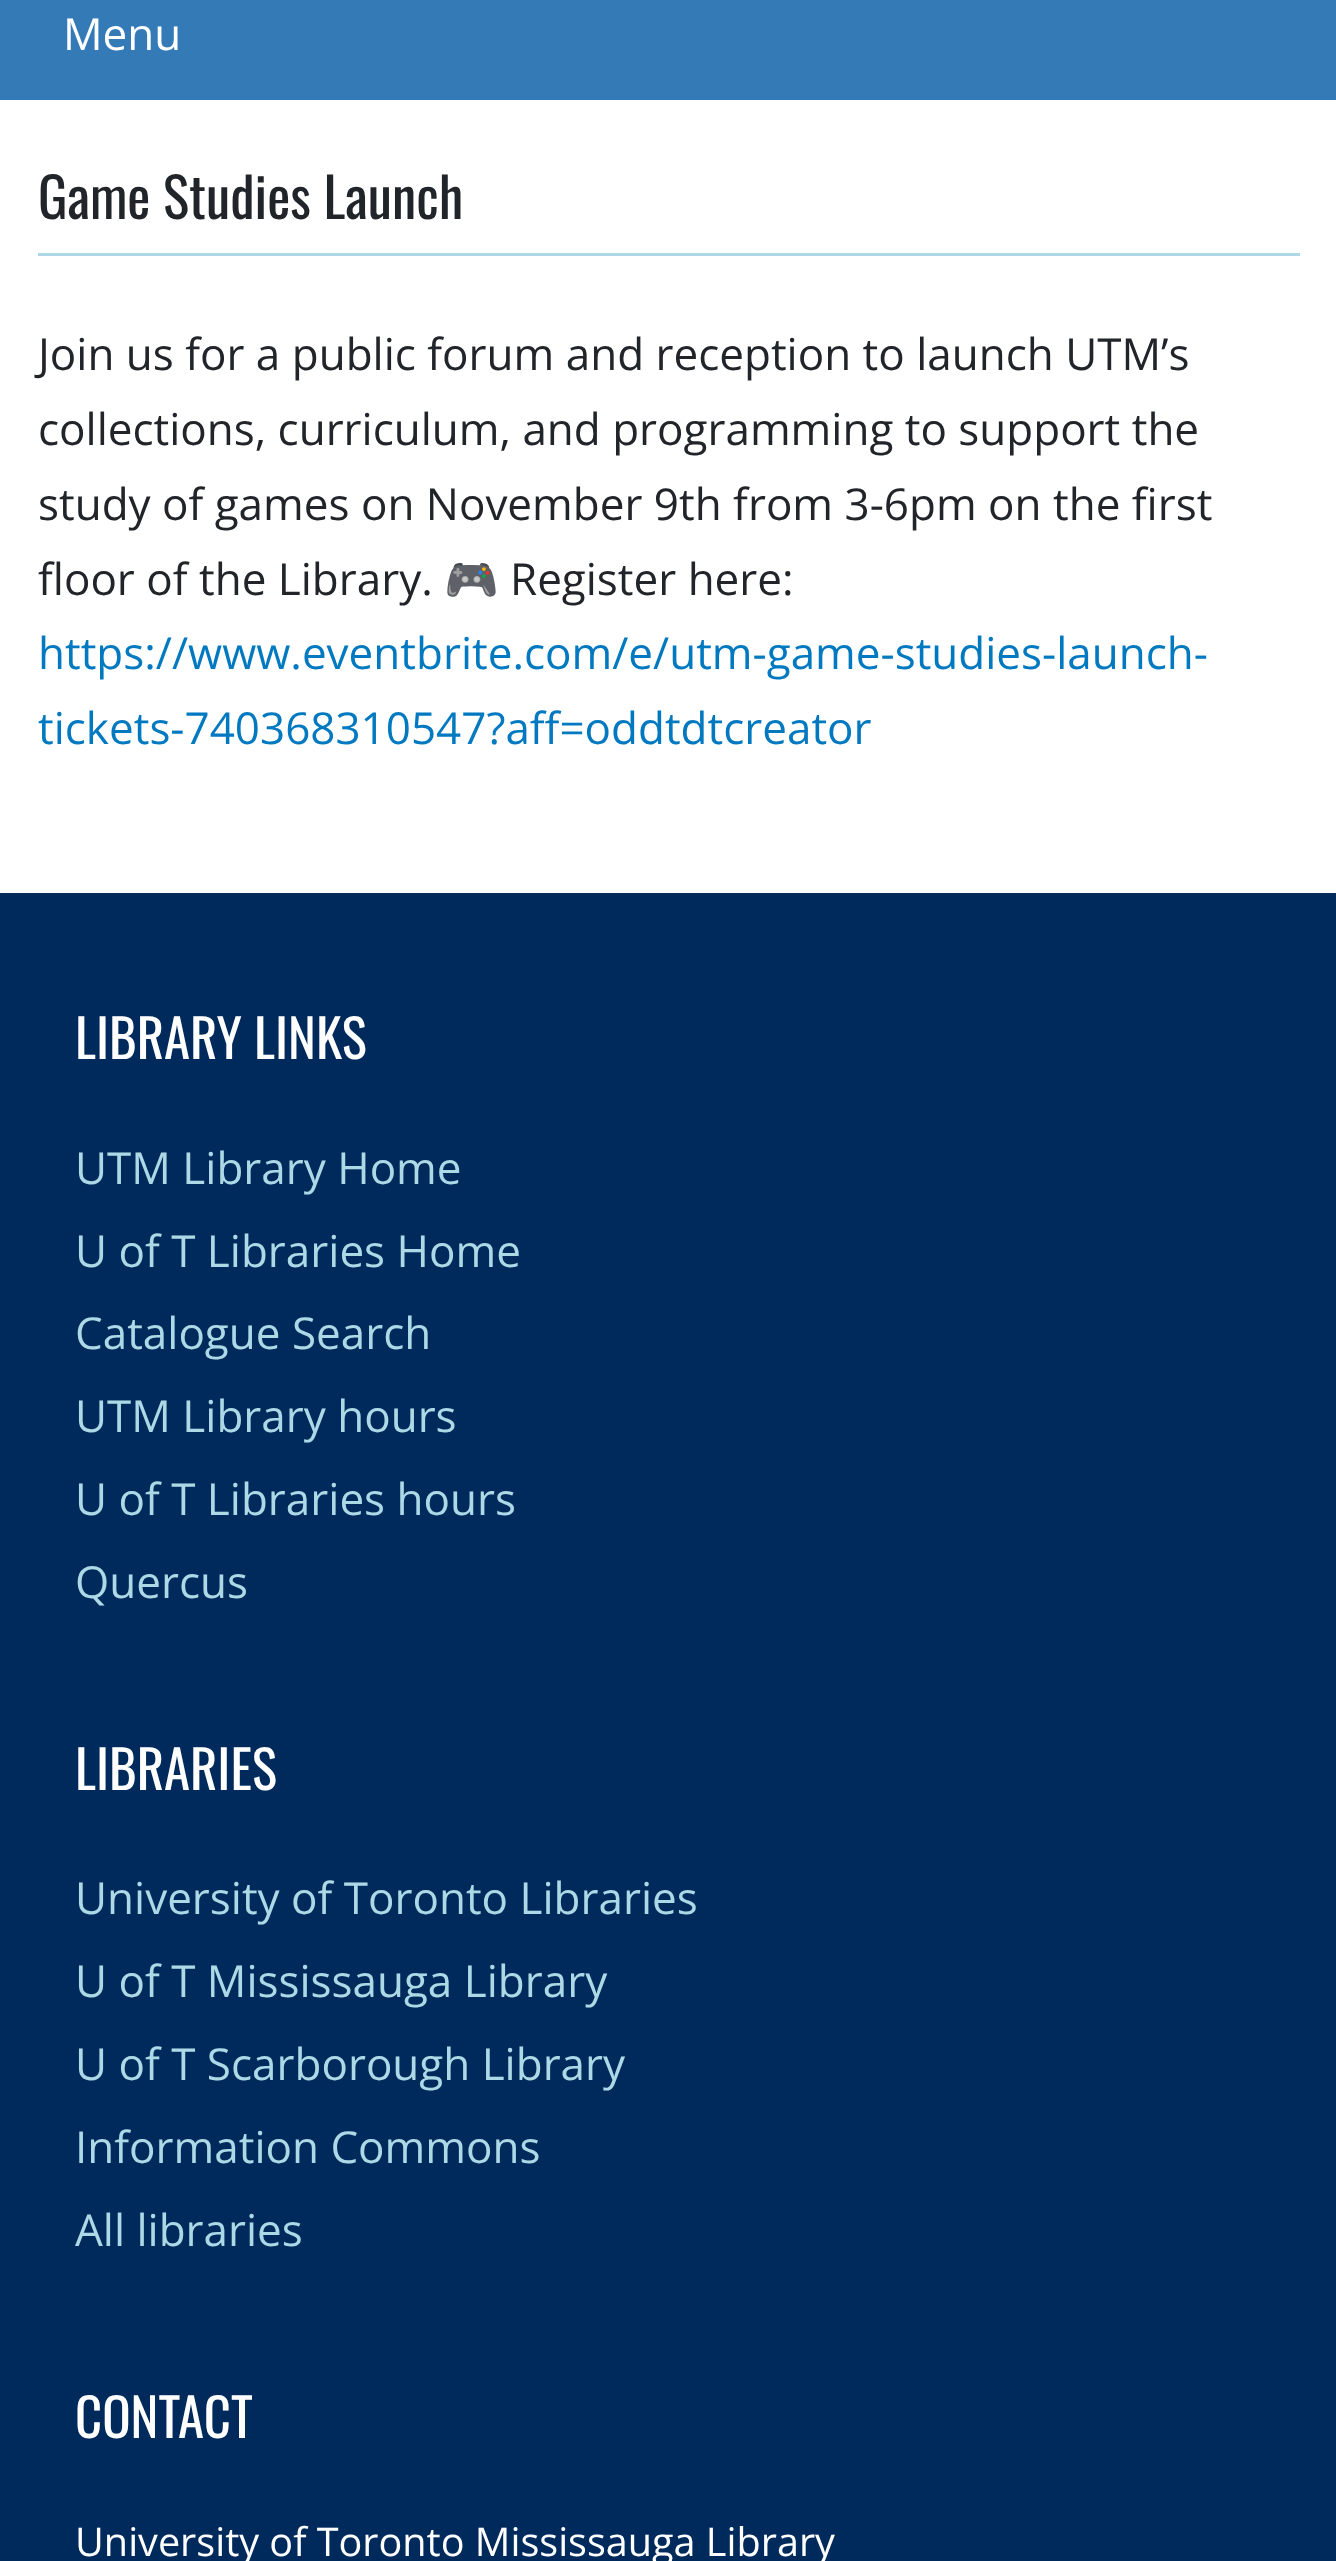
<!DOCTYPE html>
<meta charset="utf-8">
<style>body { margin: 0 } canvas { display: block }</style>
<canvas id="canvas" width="1336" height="2561"></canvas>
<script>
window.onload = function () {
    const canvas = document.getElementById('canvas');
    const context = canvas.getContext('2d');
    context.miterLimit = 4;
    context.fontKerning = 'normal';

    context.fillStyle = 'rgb(255, 255, 255)';
    context.fillRect(0, 0, 1336, 2561);
    context.fillStyle = 'rgb(51, 122, 183)';
    context.fillRect(0, 0, 1336, 100);
    context.fillStyle = 'rgb(173, 216, 230)';
    context.fillRect(38, 253, 1262, 3);
    context.fillStyle = 'rgb(0, 42, 92)';
    context.fillRect(0, 893, 1336, 1668);
    context.font = '44px Open Sans';
    context.fillStyle = 'rgb(255, 255, 255)';
    context.fillText('Menu', 63, 50);
    context.font = '55px Oswald';
    context.fillStyle = 'rgb(33, 37, 41)';
    context.fillText('Game Studies Launch', 38, 219);
    context.font = '44px Open Sans';
    context.fillText('Join us for a public forum and reception to launch UTM’s', 38, 370);
    context.fillText('collections, curriculum, and programming to support the', 38, 445);
    context.fillText('study of games on November 9th from 3-6pm on the first', 38, 520);
    context.fillText('floor of the Library.', 38, 595);
    context.font = '44px Noto Color Emoji';
    context.fillText('🎮', 444, 595);
    context.font = '44px Open Sans';
    context.fillText('Register here:', 510, 595);
    context.fillStyle = 'rgb(0, 121, 192)';
    context.fillText('https://www.eventbrite.com/e/utm-game-studies-launch-', 38, 669);
    context.fillText('tickets-740368310547?aff=oddtdtcreator', 38, 744);
    context.font = '52.75px Oswald';
    context.fillStyle = 'rgb(255, 255, 255)';
    context.fillText('LIBRARY LINKS', 75, 1059);
    context.font = '44px Open Sans';
    context.fillStyle = 'rgb(173, 216, 230)';
    context.fillText('UTM Library Home', 75, 1184);
    context.fillText('U of T Libraries Home', 75, 1267);
    context.fillText('Catalogue Search', 75, 1349);
    context.fillText('UTM Library hours', 75, 1432);
    context.fillText('U of T Libraries hours', 75, 1515);
    context.fillText('Quercus', 75, 1598);
    context.font = '52.75px Oswald';
    context.fillStyle = 'rgb(255, 255, 255)';
    context.fillText('LIBRARIES', 75, 1790);
    context.font = '44px Open Sans';
    context.fillStyle = 'rgb(173, 216, 230)';
    context.fillText('University of Toronto Libraries', 75, 1914);
    context.fillText('U of T Mississauga Library', 75, 1997);
    context.fillText('U of T Scarborough Library', 75, 2080);
    context.fillText('Information Commons', 75, 2163);
    context.fillText('All libraries', 75, 2246);
    context.font = '52.75px Oswald';
    context.fillStyle = 'rgb(255, 255, 255)';
    context.fillText('CONTACT', 75, 2438);
    context.font = '39.6px Open Sans';
    context.fillText('University of Toronto Mississauga Library', 75, 2556);
};
</script>
